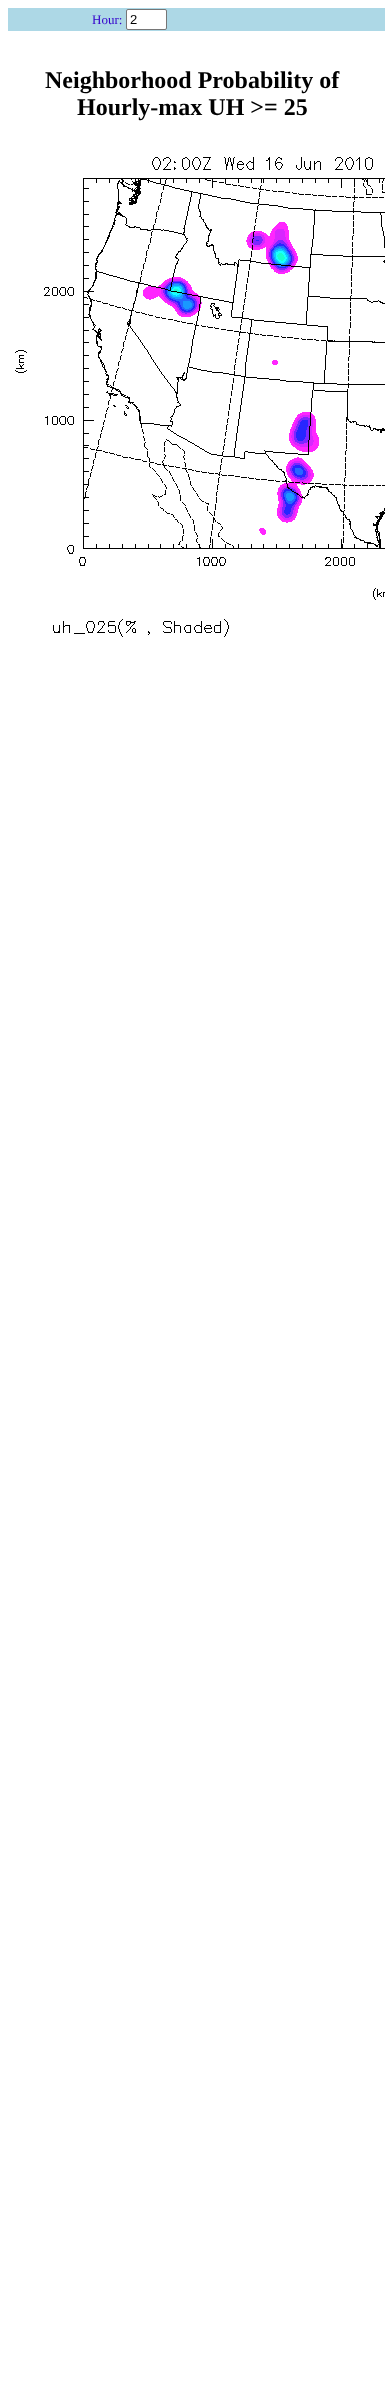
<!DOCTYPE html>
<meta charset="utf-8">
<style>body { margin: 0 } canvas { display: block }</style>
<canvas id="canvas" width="385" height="2407"></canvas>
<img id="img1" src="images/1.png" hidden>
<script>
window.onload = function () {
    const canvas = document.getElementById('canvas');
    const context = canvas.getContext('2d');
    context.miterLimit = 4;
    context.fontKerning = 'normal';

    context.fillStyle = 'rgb(255, 255, 255)';
    context.fillRect(0, 0, 385, 2407);
    context.fillStyle = 'rgb(173, 216, 230)';
    context.fillRect(8, 8, 377, 23);
    context.fillStyle = 'rgb(255, 255, 255)';
    context.beginPath();
    context.roundRect(126.5, 9.5, 40, 20, 1.5);
    context.fill();
    context.strokeStyle = 'rgb(118, 118, 118)';
    context.stroke();
    context.drawImage(document.getElementById('img1'), 15, 157, 370, 480);
    context.font = '13px Liberation Serif';
    context.fillStyle = 'rgb(51, 0, 204)';
    context.fillText('Hour:', 92, 24);
    context.font = '13px Liberation Sans';
    context.fillStyle = 'rgb(0, 0, 0)';
    context.fillText('2', 130, 24);
    context.font = 'bold 24px Liberation Serif';
    context.fillText('Neighborhood Probability of', 45, 88);
    context.fillText('Hourly-max UH >= 25', 77, 115);
};
</script>
